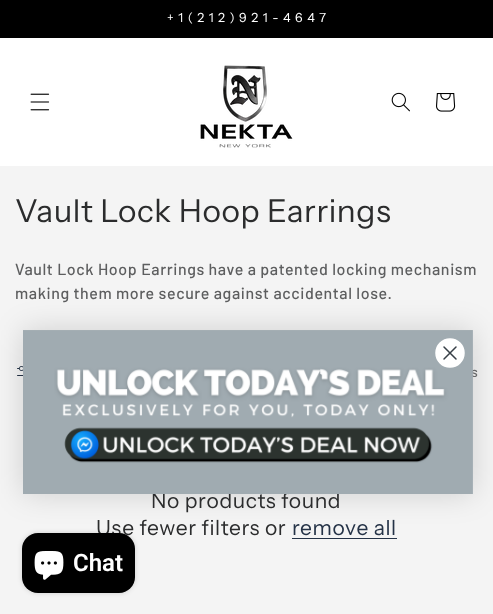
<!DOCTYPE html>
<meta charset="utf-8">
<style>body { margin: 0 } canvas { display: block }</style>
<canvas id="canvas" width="493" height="614"></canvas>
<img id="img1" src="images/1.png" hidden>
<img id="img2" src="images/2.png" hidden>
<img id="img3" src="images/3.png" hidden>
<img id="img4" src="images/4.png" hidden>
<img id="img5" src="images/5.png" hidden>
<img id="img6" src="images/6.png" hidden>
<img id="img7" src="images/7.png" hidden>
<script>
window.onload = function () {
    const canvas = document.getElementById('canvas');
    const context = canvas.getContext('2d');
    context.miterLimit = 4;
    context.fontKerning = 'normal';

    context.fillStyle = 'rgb(244, 244, 244)';
    context.fillRect(0, 0, 493, 614);
    context.fillStyle = 'rgb(0, 0, 0)';
    context.fillRect(0, 0, 493, 38);
    context.fillStyle = 'rgb(255, 255, 255)';
    context.fillRect(0, 38, 493, 128);
    context.drawImage(document.getElementById('img1'), 30, 93, 20, 18);
    context.drawImage(document.getElementById('img2'), 200, 65, 93, 83);
    context.drawImage(document.getElementById('img3'), 391, 92, 19, 20);
    context.drawImage(document.getElementById('img4'), 436, 93, 20, 19);
    context.drawImage(document.getElementById('img5'), 17, 366, 6, 10);
    context.fillStyle = 'rgb(37, 51, 71)';
    context.fillRect(292, 538, 105, 1);
    context.fillStyle = 'rgba(0, 0, 0, 0.15)';
    context.filter = 'blur(15px)';
    context.beginPath();
    context.roundRect(23, 330, 450, 164, 4);
    context.fill();
    context.filter = 'none';
    context.filter = 'blur(2.5px)';
    context.beginPath();
    context.roundRect(22, 533, 113, 60, 16);
    context.fill();
    context.filter = 'none';
    context.letterSpacing = '1px';
    context.font = '12.6px Instrument Sans';
    context.fillStyle = 'rgb(255, 255, 255)';
    context.fillText('+ 1 ( 2 1 2 ) 9 2 1 - 4 6 4 7', 167, 22);
    context.letterSpacing = '0.6px';
    context.font = '31.5px Instrument Sans';
    context.fillStyle = 'rgb(43, 44, 45)';
    context.fillText('Vault Lock Hoop Earrings', 15, 222);
    context.font = '500 16px Barlow';
    context.fillStyle = 'rgb(93, 94, 95)';
    context.fillText('Vault Lock Hoop Earrings have a patented locking mechanism', 15, 275);
    context.fillText('making them more secure against accidental lose.', 15, 299);
    context.font = '500 14px Barlow';
    context.fillStyle = 'rgb(103, 104, 105)';
    context.fillText('s', 471, 377);
    context.font = '21px Instrument Sans';
    context.fillStyle = 'rgb(43, 44, 45)';
    context.fillText('No products found', 151, 508);
    context.fillText('Use fewer filters or', 96, 535);
    context.fillStyle = 'rgb(37, 51, 71)';
    context.fillText('remove all', 292, 535);
    context.drawImage(document.getElementById('img6'), 23, 330, 450, 164);
    context.fillStyle = 'rgb(255, 255, 255)';
    context.beginPath();
    context.arc(450, 353, 14, 0, 2 * Math.PI);
    context.fill();
    context.strokeStyle = 'rgb(255, 255, 255)';
    context.lineWidth = 1.5;
    context.stroke();
    context.beginPath();
    context.moveTo(444, 347);
    context.lineTo(456, 359);
    context.moveTo(444, 359);
    context.lineTo(456, 347);
    context.closePath();
    context.strokeStyle = 'rgb(55, 63, 71)';
    context.lineCap = 'round';
    context.lineJoin = 'round';
    context.stroke();
    context.fillStyle = 'rgb(0, 0, 0)';
    context.beginPath();
    context.roundRect(22, 533, 113, 60, 16);
    context.fill();
    context.drawImage(document.getElementById('img7'), 34, 551, 30, 29);
    context.letterSpacing = '0px';
    context.font = '600 24px Roboto';
    context.fillStyle = 'rgb(255, 255, 255)';
    context.fillText('Chat', 73, 571);
};
</script>
